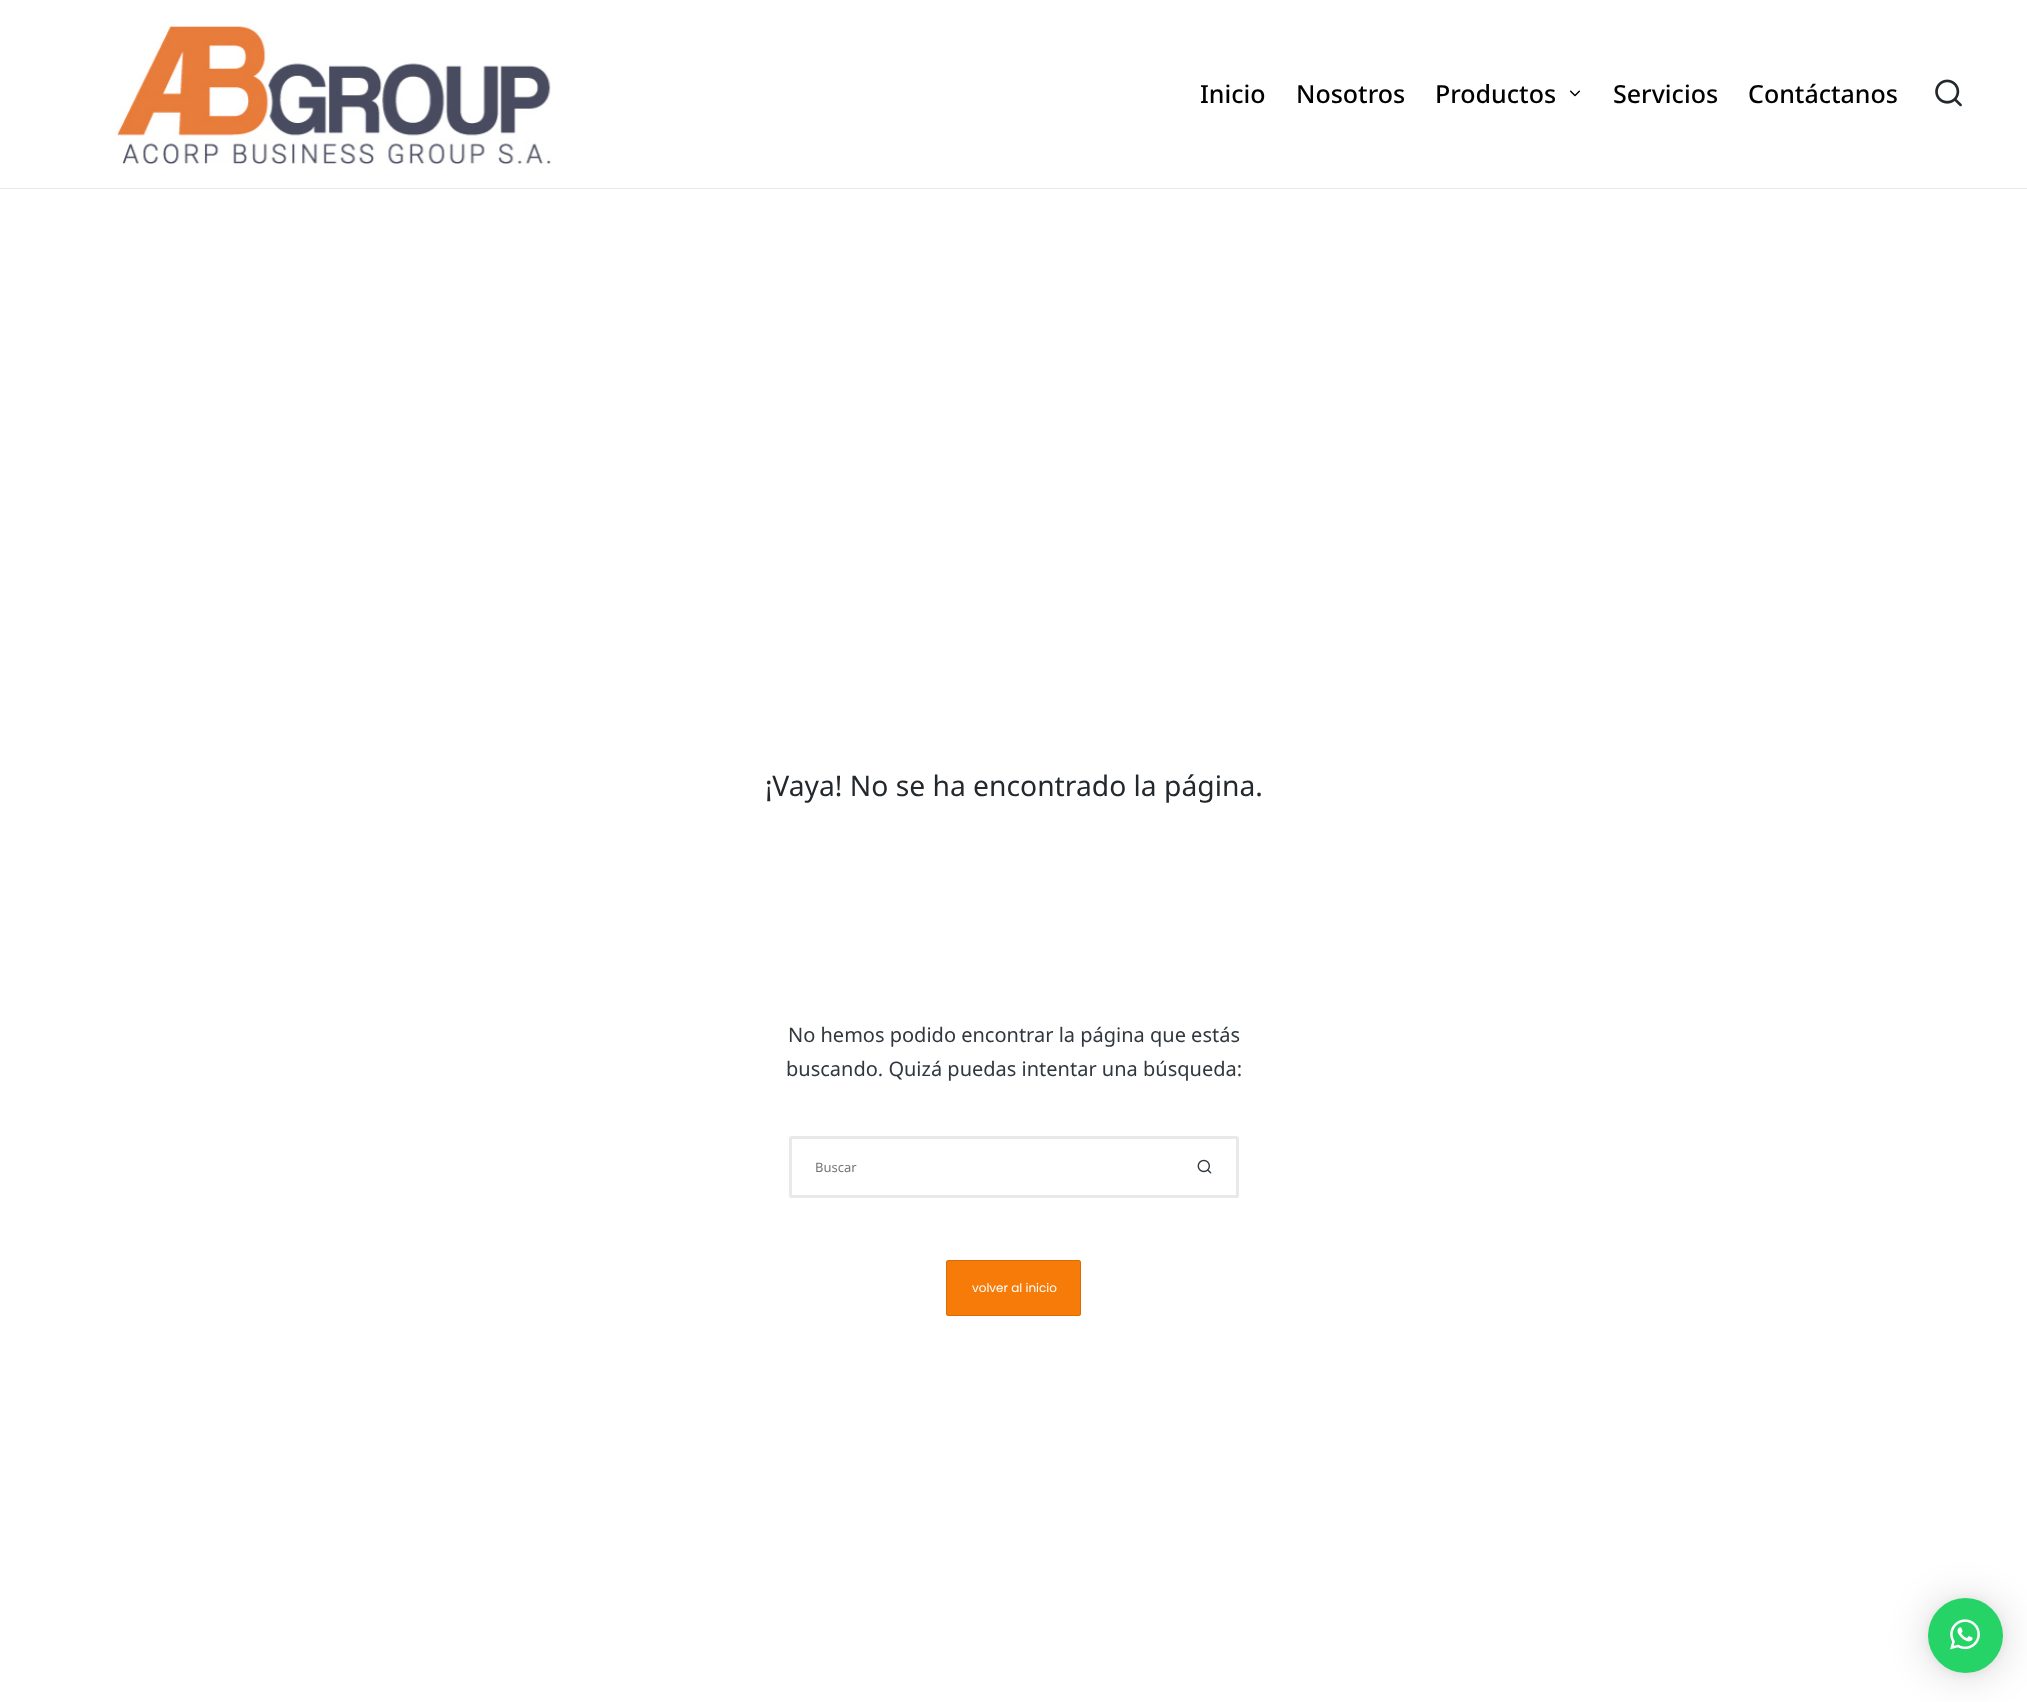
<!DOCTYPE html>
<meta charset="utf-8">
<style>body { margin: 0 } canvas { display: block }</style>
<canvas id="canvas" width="2027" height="1702"></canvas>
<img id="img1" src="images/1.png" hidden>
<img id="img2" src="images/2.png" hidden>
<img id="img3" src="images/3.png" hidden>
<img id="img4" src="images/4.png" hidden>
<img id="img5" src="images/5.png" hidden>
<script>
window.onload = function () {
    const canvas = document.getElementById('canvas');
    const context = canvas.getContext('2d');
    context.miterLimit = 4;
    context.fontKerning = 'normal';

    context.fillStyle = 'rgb(255, 255, 255)';
    context.fillRect(0, 0, 2027, 1702);
    context.fillStyle = 'rgb(233, 233, 233)';
    context.fillRect(0, 188, 2027, 1);
    context.drawImage(document.getElementById('img1'), 115, 26, 437, 138);
    context.drawImage(document.getElementById('img2'), 1569, 90, 11, 7);
    context.drawImage(document.getElementById('img3'), 1935, 79, 27, 28);
    context.beginPath();
    context.roundRect(790.5, 1137.5, 447, 59, 1);
    context.strokeStyle = 'rgb(233, 233, 233)';
    context.lineWidth = 3;
    context.stroke();
    context.drawImage(document.getElementById('img4'), 1197, 1159, 15, 15);
    context.fillStyle = 'rgb(247, 123, 8)';
    context.beginPath();
    context.roundRect(946, 1260, 135, 56, 2.5);
    context.fill();
    context.beginPath();
    context.roundRect(946.5, 1260.5, 134, 55, 2);
    context.strokeStyle = 'rgba(0, 0, 0, 0.12)';
    context.lineWidth = 1;
    context.stroke();
    context.fillStyle = 'rgba(0, 0, 0, 0.16)';
    context.filter = 'blur(20px)';
    context.beginPath();
    context.roundRect(1928, 1600, 75, 75, 37.5);
    context.fill();
    context.filter = 'none';
    context.fillStyle = 'rgba(0, 0, 0, 0.06)';
    context.filter = 'blur(4px)';
    context.beginPath();
    context.roundRect(1928, 1599, 75, 75, 37.5);
    context.fill();
    context.filter = 'none';
    context.fillStyle = 'rgb(37, 211, 102)';
    context.beginPath();
    context.arc(1965.5, 1635.5, 37.5, 0, 2 * Math.PI);
    context.fill();
    context.drawImage(document.getElementById('img5'), 1950, 1619, 30, 31);
    context.font = '500 25px Noto Sans';
    context.fillStyle = 'rgb(0, 0, 0)';
    context.fillText('Inicio', 1200, 103);
    context.fillText('Nosotros', 1296, 103);
    context.fillText('Productos', 1435, 103);
    context.fillText('Servicios', 1613, 103);
    context.fillText('Contáctanos', 1748, 103);
    context.font = '28.25px Noto Sans';
    context.fillStyle = 'rgb(35, 40, 45)';
    context.fillText('¡Vaya! No se ha encontrado la página.', 765, 796);
    context.font = '20px Noto Sans';
    context.fillStyle = 'rgb(48, 55, 62)';
    context.fillText('No hemos podido encontrar la página que estás', 788, 1042);
    context.fillText('buscando. Quizá puedas intentar una búsqueda:', 786, 1076);
    context.font = '13px Noto Sans';
    context.fillStyle = 'rgb(117, 117, 117)';
    context.fillText('Buscar', 815, 1172);
    context.font = '12px Poppins';
    context.fillStyle = 'rgb(255, 255, 255)';
    context.fillText('volver al inicio', 972, 1292);
};
</script>
